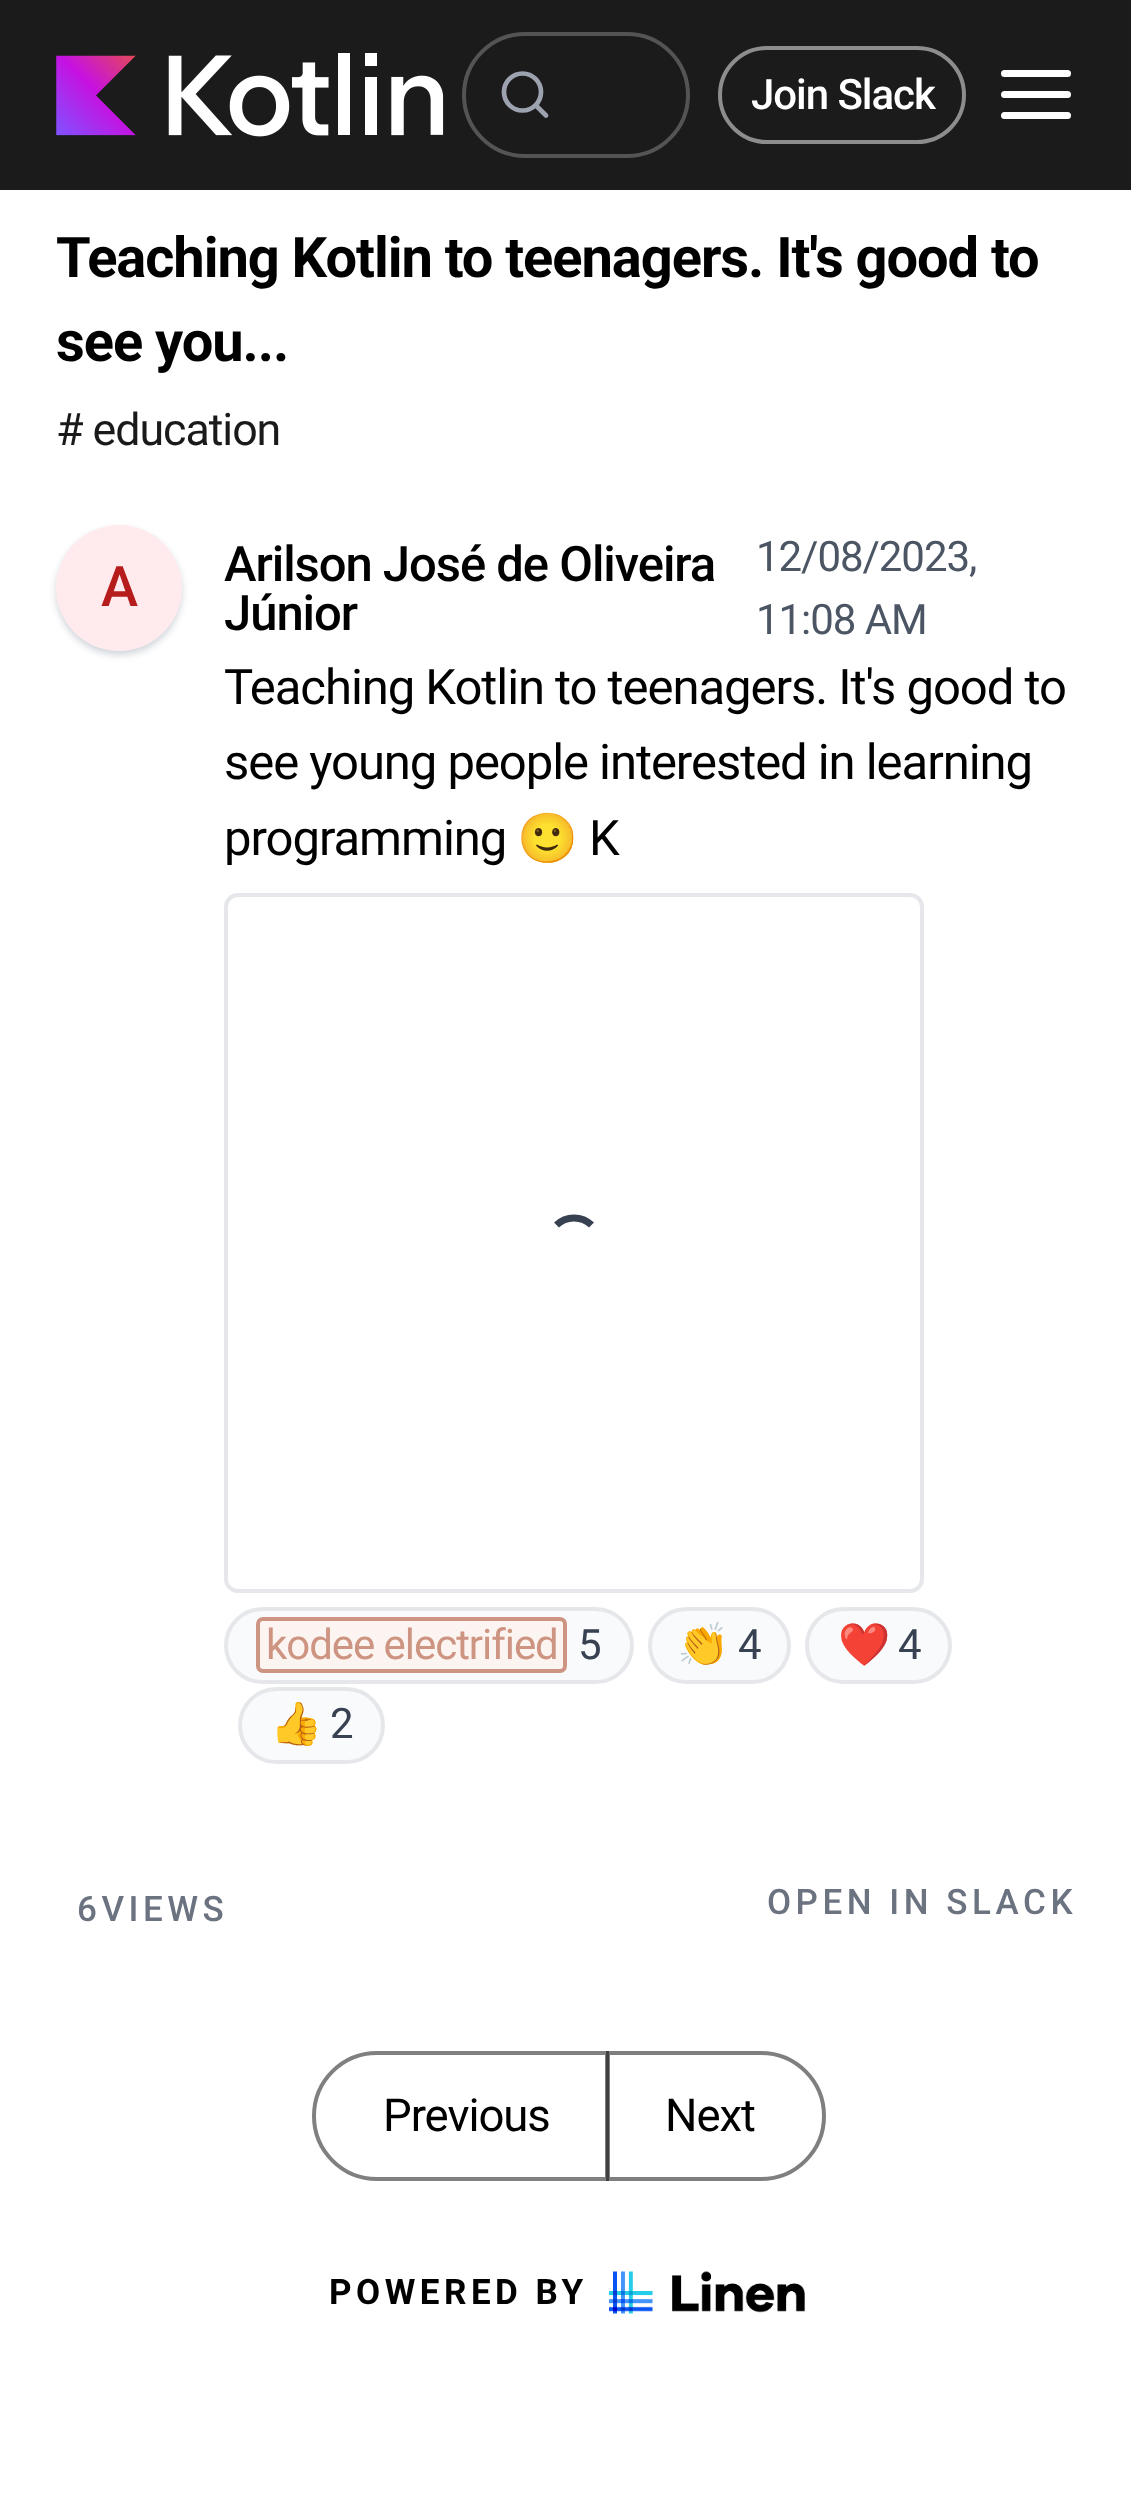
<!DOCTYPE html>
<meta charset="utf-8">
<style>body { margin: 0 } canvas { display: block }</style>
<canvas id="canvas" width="1131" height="2509"></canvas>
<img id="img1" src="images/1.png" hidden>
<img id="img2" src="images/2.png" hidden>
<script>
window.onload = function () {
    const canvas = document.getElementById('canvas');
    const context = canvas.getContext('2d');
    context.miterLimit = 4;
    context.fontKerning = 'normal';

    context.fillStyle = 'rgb(255, 255, 255)';
    context.fillRect(0, 0, 1131, 2509);
    context.fillStyle = 'rgb(27, 27, 27)';
    context.fillRect(0, 0, 1131, 190);
    context.drawImage(document.getElementById('img1'), 56, 53, 388, 84);
    context.beginPath();
    context.roundRect(464, 34, 224, 122, 61);
    context.strokeStyle = 'rgb(84, 84, 84)';
    context.lineWidth = 4;
    context.stroke();
    context.beginPath();
    context.arc(522.5, 92, 18.5, 0, 2 * Math.PI);
    context.strokeStyle = 'rgb(156, 163, 175)';
    context.lineWidth = 4.7;
    context.stroke();
    context.beginPath();
    context.moveTo(546, 115.5);
    context.lineTo(536, 105.5);
    context.lineCap = 'round';
    context.lineJoin = 'round';
    context.stroke();
    context.beginPath();
    context.roundRect(720, 48, 244, 94, 47);
    context.strokeStyle = 'rgb(141, 141, 141)';
    context.lineWidth = 4;
    context.lineJoin = 'miter';
    context.stroke();
    context.beginPath();
    context.moveTo(1004.5, 94.5);
    context.lineTo(1067.5, 94.5);
    context.strokeStyle = 'rgb(255, 255, 255)';
    context.lineWidth = 7;
    context.lineJoin = 'round';
    context.stroke();
    context.beginPath();
    context.moveTo(1004.5, 73.5);
    context.lineTo(1067.5, 73.5);
    context.stroke();
    context.beginPath();
    context.moveTo(1004.5, 115.5);
    context.lineTo(1067.5, 115.5);
    context.stroke();
    context.fillStyle = 'rgb(209, 213, 219)';
    context.filter = 'blur(3.5px)';
    context.beginPath();
    context.roundRect(56, 529, 126, 126, 63);
    context.fill();
    context.filter = 'none';
    context.fillStyle = 'rgb(255, 235, 238)';
    context.beginPath();
    context.arc(119, 588, 63, 0, 2 * Math.PI);
    context.fill();
    context.beginPath();
    context.roundRect(226, 895, 696, 696, 12);
    context.strokeStyle = 'rgb(229, 231, 235)';
    context.lineWidth = 4;
    context.lineJoin = 'miter';
    context.stroke();
    context.beginPath();
    context.moveTo(556.5, 1225);
    context.bezierCurveTo(566, 1215.5, 582, 1215.5, 591.5, 1225);
    context.moveTo(556.5, 1225);
    context.bezierCurveTo(566, 1215.5, 582, 1215.5, 591.5, 1225);
    context.moveTo(556.5, 1225);
    context.bezierCurveTo(566, 1215.5, 582, 1215.5, 591.5, 1225);
    context.strokeStyle = 'rgb(55, 65, 81)';
    context.lineWidth = 7;
    context.lineCap = 'butt';
    context.stroke();
    context.fillStyle = 'rgb(249, 250, 251)';
    context.beginPath();
    context.roundRect(226, 1609, 406, 73, 36.5);
    context.fill();
    context.strokeStyle = 'rgb(229, 231, 235)';
    context.lineWidth = 4;
    context.stroke();
    context.fillStyle = 'rgb(251, 244, 240)';
    context.beginPath();
    context.roundRect(258, 1619, 307, 52, 5);
    context.fill();
    context.strokeStyle = 'rgb(206, 148, 130)';
    context.stroke();
    context.fillStyle = 'rgb(249, 250, 251)';
    context.beginPath();
    context.roundRect(650, 1609, 139, 73, 36.5);
    context.fill();
    context.strokeStyle = 'rgb(229, 231, 235)';
    context.stroke();
    context.beginPath();
    context.roundRect(807, 1609, 143, 73, 36.5);
    context.fill();
    context.stroke();
    context.beginPath();
    context.roundRect(240, 1689, 143, 73, 36.5);
    context.fill();
    context.stroke();
    context.beginPath();
    context.roundRect(314, 2053, 293, 126, [63, 0, 0, 63]);
    context.strokeStyle = 'rgb(128, 128, 128)';
    context.stroke();
    context.beginPath();
    context.roundRect(608, 2053, 216, 126, [0, 63, 63, 0]);
    context.strokeStyle = 'rgba(0, 0, 0, 0.5)';
    context.stroke();
    context.drawImage(document.getElementById('img2'), 609, 2271, 196, 43);
    context.letterSpacing = '-1.05px';
    context.font = '500 42px Roboto';
    context.fillStyle = 'rgb(255, 255, 255)';
    context.fillText('Join Slack', 751, 109);
    context.font = 'bold 56px Roboto';
    context.fillStyle = 'rgb(0, 0, 0)';
    context.fillText('Teaching Kotlin to teenagers. It\'s good to', 56, 277);
    context.fillText('see you...', 56, 361);
    context.font = '44.75px Roboto';
    context.fillStyle = 'rgb(26, 26, 26)';
    context.fillText('# education', 56, 445);
    context.font = '500 56px Roboto';
    context.fillStyle = 'rgb(183, 28, 28)';
    context.fillText('A', 101, 606);
    context.font = '500 49px Roboto';
    context.fillStyle = 'rgb(0, 0, 0)';
    context.fillText('Arilson José de Oliveira', 224, 581);
    context.fillText('Júnior', 224, 630);
    context.font = '42px Roboto';
    context.fillStyle = 'rgb(75, 85, 99)';
    context.fillText('12/08/2023,', 756, 571);
    context.fillText('11:08 AM', 756, 634);
    context.font = '49px Roboto';
    context.fillStyle = 'rgb(0, 0, 0)';
    context.fillText('Teaching Kotlin to teenagers. It\'s good to', 224, 704);
    context.fillText('see young people interested in learning', 224, 779);
    context.fillText('programming', 224, 855);
    context.font = '49px Noto Color Emoji';
    context.fillText('🙂', 517, 855);
    context.font = '49px Roboto';
    context.fillText('K', 589, 855);
    context.font = '42px Roboto';
    context.fillStyle = 'rgb(206, 148, 130)';
    context.fillText('kodee electrified', 266, 1659);
    context.fillStyle = 'rgb(55, 65, 81)';
    context.fillText('5', 578, 1659);
    context.font = '42px Noto Color Emoji';
    context.fillText('👏', 677, 1659);
    context.font = '42px Roboto';
    context.fillText('4', 738, 1659);
    context.font = '42px Noto Color Emoji';
    context.fillText('❤️', 838, 1659);
    context.font = '42px Roboto';
    context.fillText('4', 898, 1659);
    context.font = '42px Noto Color Emoji';
    context.fillText('👍', 270, 1738);
    context.font = '42px Roboto';
    context.fillText('2', 330, 1738);
    context.letterSpacing = '4.5px';
    context.font = '500 35px Roboto';
    context.fillStyle = 'rgb(107, 114, 128)';
    context.fillText('6VIEWS', 77, 1921);
    context.fillText('OPEN IN SLACK', 767, 1914);
    context.letterSpacing = '-1.05px';
    context.font = '45.5px Roboto';
    context.fillStyle = 'rgb(0, 0, 0)';
    context.fillText('Previous', 383, 2131);
    context.fillText('Next', 665, 2131);
    context.letterSpacing = '4.5px';
    context.font = 'bold 35px Roboto';
    context.fillText('POWERED BY', 329, 2304);
};
</script>
